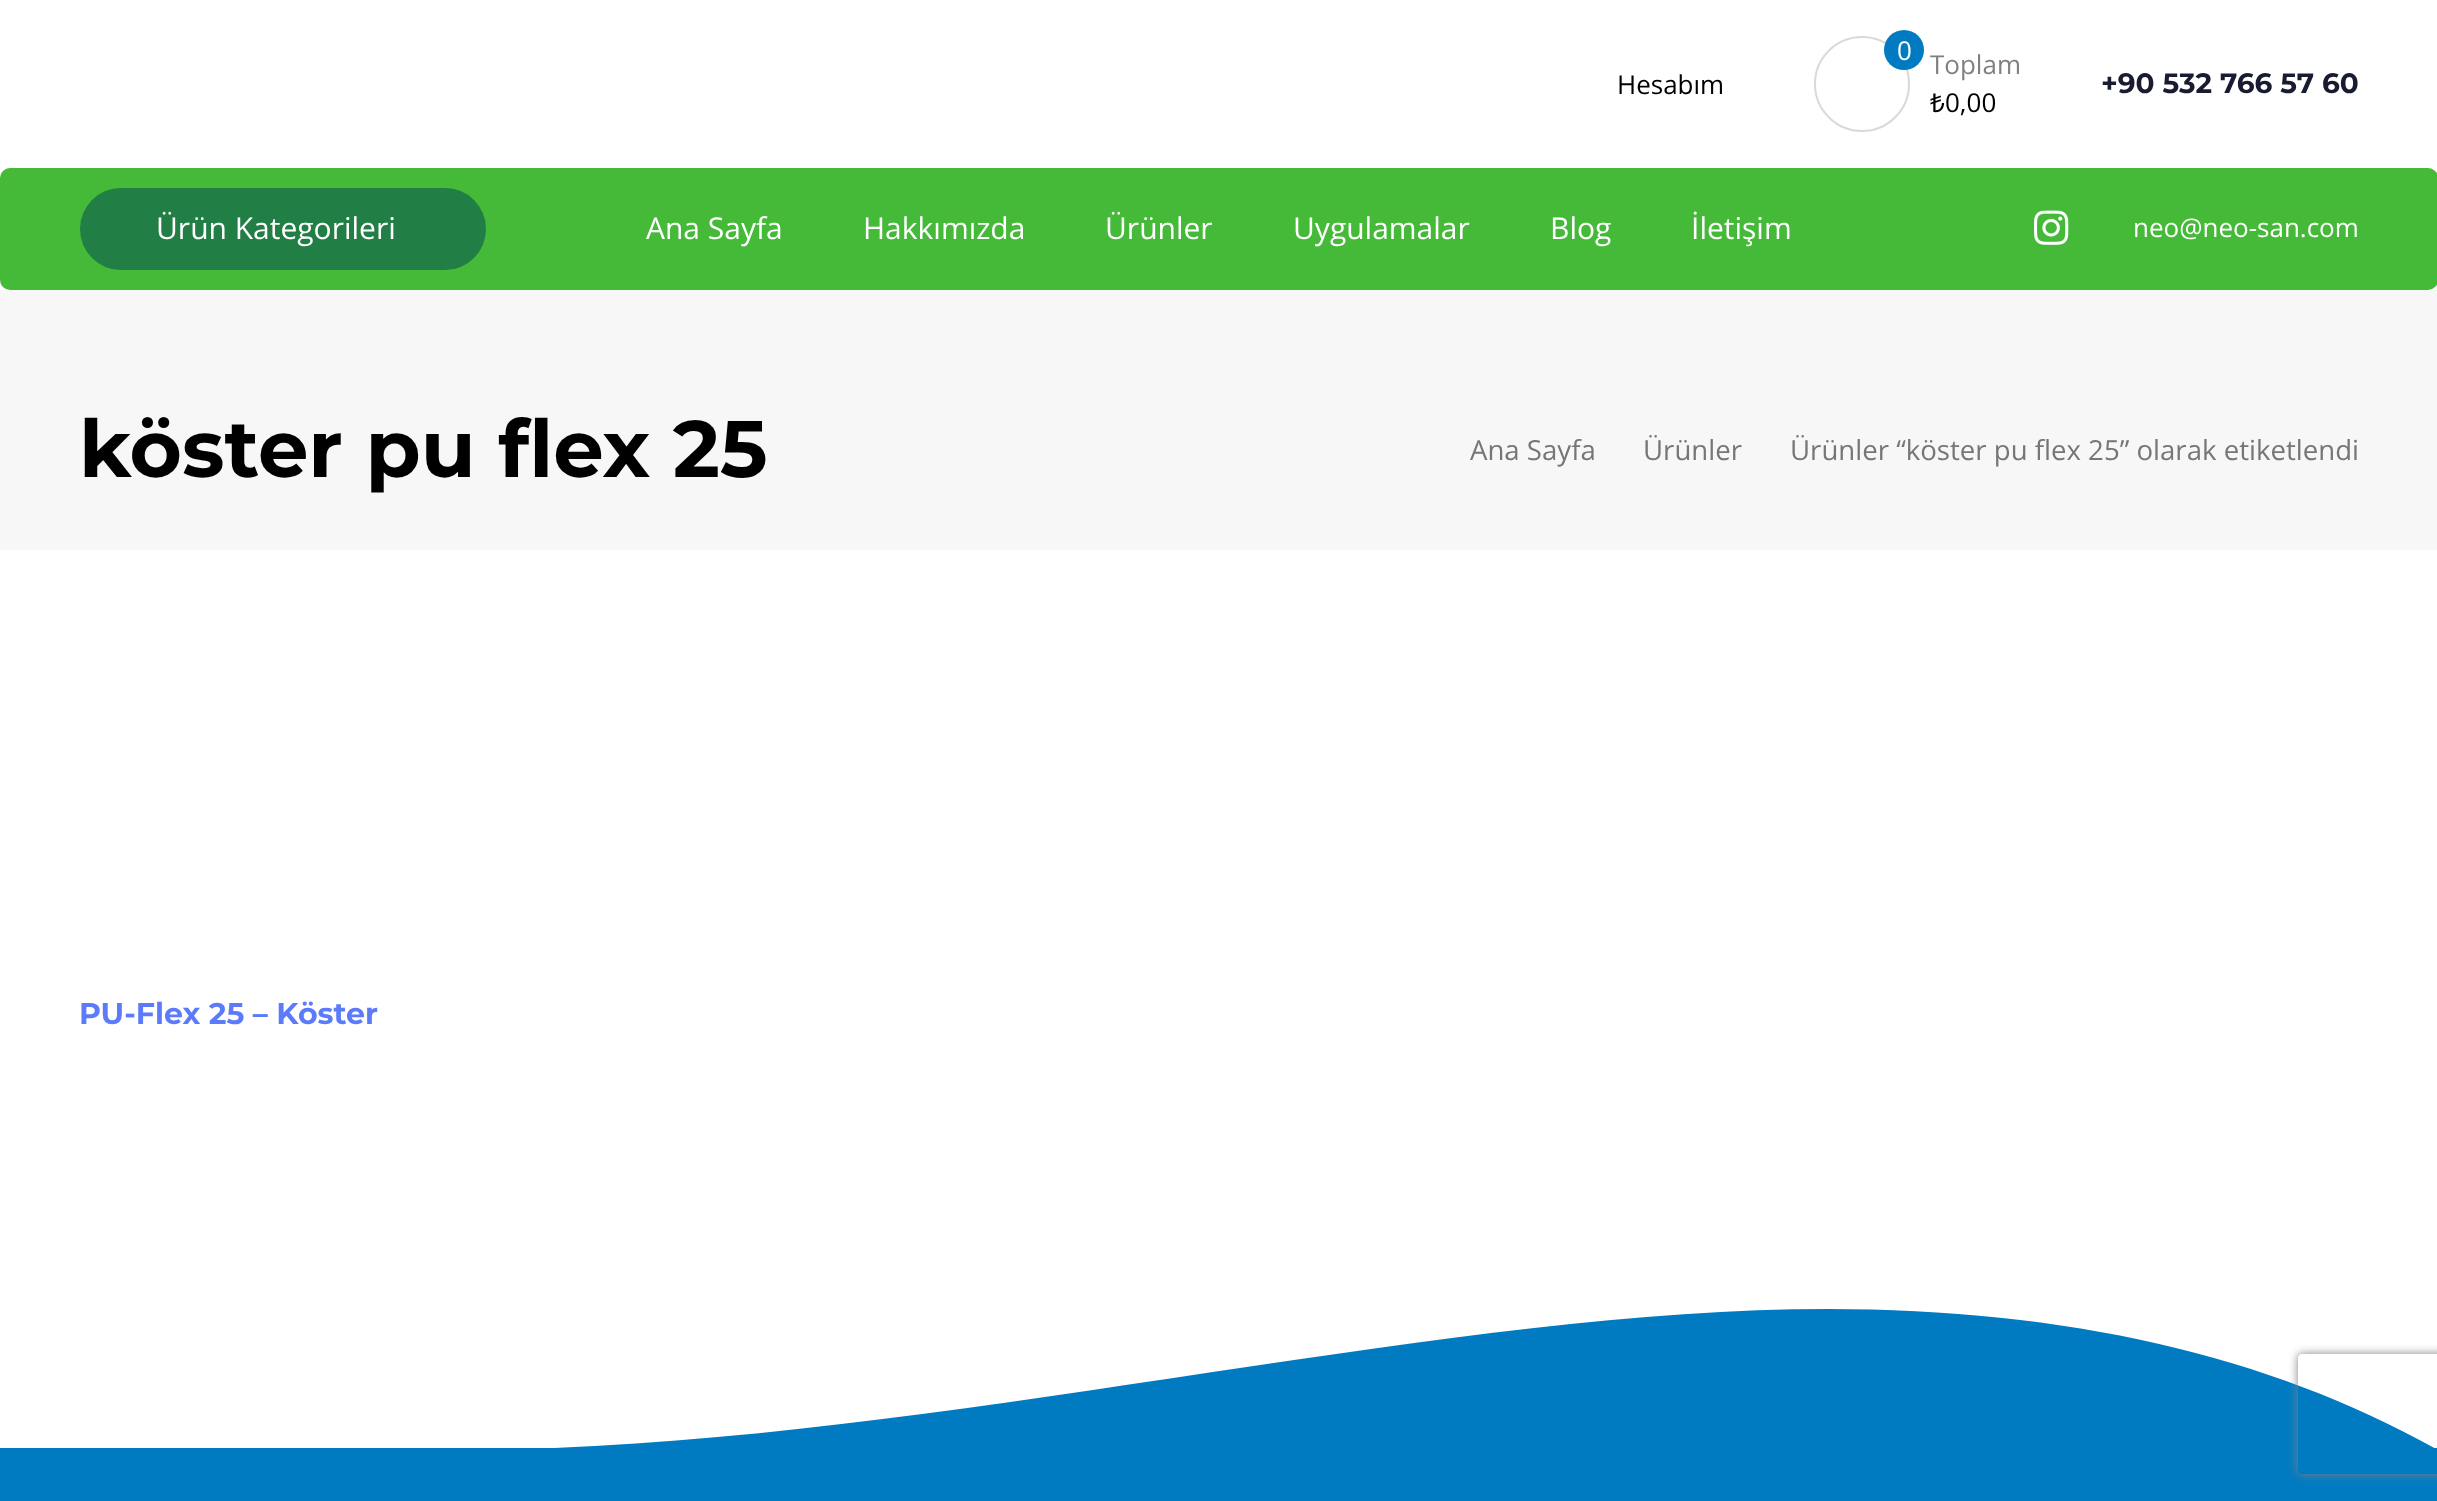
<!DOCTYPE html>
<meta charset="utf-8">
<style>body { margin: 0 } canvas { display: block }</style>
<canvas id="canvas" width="2437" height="1501"></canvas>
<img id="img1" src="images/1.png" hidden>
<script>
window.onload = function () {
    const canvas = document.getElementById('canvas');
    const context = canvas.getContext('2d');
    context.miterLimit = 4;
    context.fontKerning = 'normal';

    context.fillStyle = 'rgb(255, 255, 255)';
    context.fillRect(0, 0, 2437, 1501);
    context.beginPath();
    context.arc(1862, 84, 47, 0, 2 * Math.PI);
    context.strokeStyle = 'rgb(217, 217, 217)';
    context.lineWidth = 2;
    context.stroke();
    context.fillStyle = 'rgb(0, 123, 194)';
    context.beginPath();
    context.arc(1904, 50, 20, 0, 2 * Math.PI);
    context.fill();
    context.fillStyle = 'rgb(69, 185, 56)';
    context.beginPath();
    context.roundRect(0, 168, 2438, 122, 10);
    context.fill();
    context.fillStyle = 'rgb(33, 126, 69)';
    context.beginPath();
    context.roundRect(80, 188, 406, 82, 41);
    context.fill();
    context.drawImage(document.getElementById('img1'), 2034, 210, 35, 35);
    context.fillStyle = 'rgb(247, 247, 247)';
    context.fillRect(0, 290, 2437, 260);
    context.fillStyle = 'rgb(0, 123, 194)';
    context.fillRect(0, 1309, 2437, 192);
    context.save();
    context.beginPath();
    context.rect(0, 1260, 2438, 188);
    context.clip();
    context.fillStyle = 'rgb(255, 255, 255)';
    context.beginPath();
    context.moveTo(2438, 1450);
    context.bezierCurveTo(2271, 1356, 2068, 1309, 1828, 1309);
    context.bezierCurveTo(1426, 1309, 914, 1450, 457, 1450);
    context.lineTo(0, 1450);
    context.lineTo(0, 1262);
    context.lineTo(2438, 1262);
    context.fill();
    context.restore();
    context.save();
    context.beginPath();
    context.moveTo(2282, 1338);
    context.lineTo(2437, 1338);
    context.lineTo(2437, 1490);
    context.lineTo(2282, 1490);
    context.closePath();
    context.moveTo(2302, 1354);
    context.lineTo(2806, 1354);
    context.bezierCurveTo(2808, 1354, 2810, 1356, 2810, 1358);
    context.lineTo(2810, 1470);
    context.bezierCurveTo(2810, 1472, 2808, 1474, 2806, 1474);
    context.lineTo(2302, 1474);
    context.bezierCurveTo(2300, 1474, 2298, 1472, 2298, 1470);
    context.lineTo(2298, 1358);
    context.bezierCurveTo(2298, 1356, 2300, 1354, 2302, 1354);
    context.closePath();
    context.clip('evenodd');
    context.fillStyle = 'rgb(128, 128, 128)';
    context.filter = 'blur(5px)';
    context.beginPath();
    context.roundRect(2298, 1354, 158, 120, 4);
    context.fill();
    context.filter = 'none';
    context.restore();
    context.font = '26px Open Sans';
    context.fillStyle = 'rgb(0, 0, 0)';
    context.fillText('Hesabım', 1617, 94);
    context.fillStyle = 'rgb(255, 255, 255)';
    context.fillText('0', 1897, 60);
    context.fillStyle = 'rgb(128, 128, 128)';
    context.fillText('Toplam', 1930, 74);
    context.font = '26px Noto Sans';
    context.fillStyle = 'rgb(0, 0, 0)';
    context.fillText('₺', 1930, 112);
    context.font = '26px Open Sans';
    context.fillText('0,00', 1945, 112);
    context.font = '100 28px Montserrat';
    context.fillStyle = 'rgb(24, 27, 49)';
    context.fillText('+90 532 766 57 60', 2101, 93);
    context.font = '30px Open Sans';
    context.fillStyle = 'rgb(255, 255, 255)';
    context.fillText('Ürün Kategorileri', 156, 239);
    context.fillText('Ana Sayfa', 646, 239);
    context.fillText('Hakkımızda', 863, 239);
    context.fillText('Ürünler', 1105, 239);
    context.fillText('Uygulamalar', 1293, 239);
    context.fillText('Blog', 1550, 239);
    context.fillText('İletişim', 1691, 239);
    context.font = '26px Open Sans';
    context.fillText('neo@neo-san.com', 2133, 237);
    context.font = '100 80px Montserrat';
    context.fillStyle = 'rgb(0, 0, 0)';
    context.fillText('köster pu flex 25', 79, 477);
    context.font = '27.6px Open Sans';
    context.fillStyle = 'rgb(118, 118, 118)';
    context.fillText('Ana Sayfa', 1470, 460);
    context.fillText('Ürünler', 1643, 460);
    context.fillText('Ürünler “köster pu flex 25” olarak etiketlendi', 1790, 460);
    context.font = '100 30px Montserrat';
    context.fillStyle = 'rgb(91, 123, 251)';
    context.fillText('PU-Flex 25 – Köster', 79, 1024);
};
</script>
